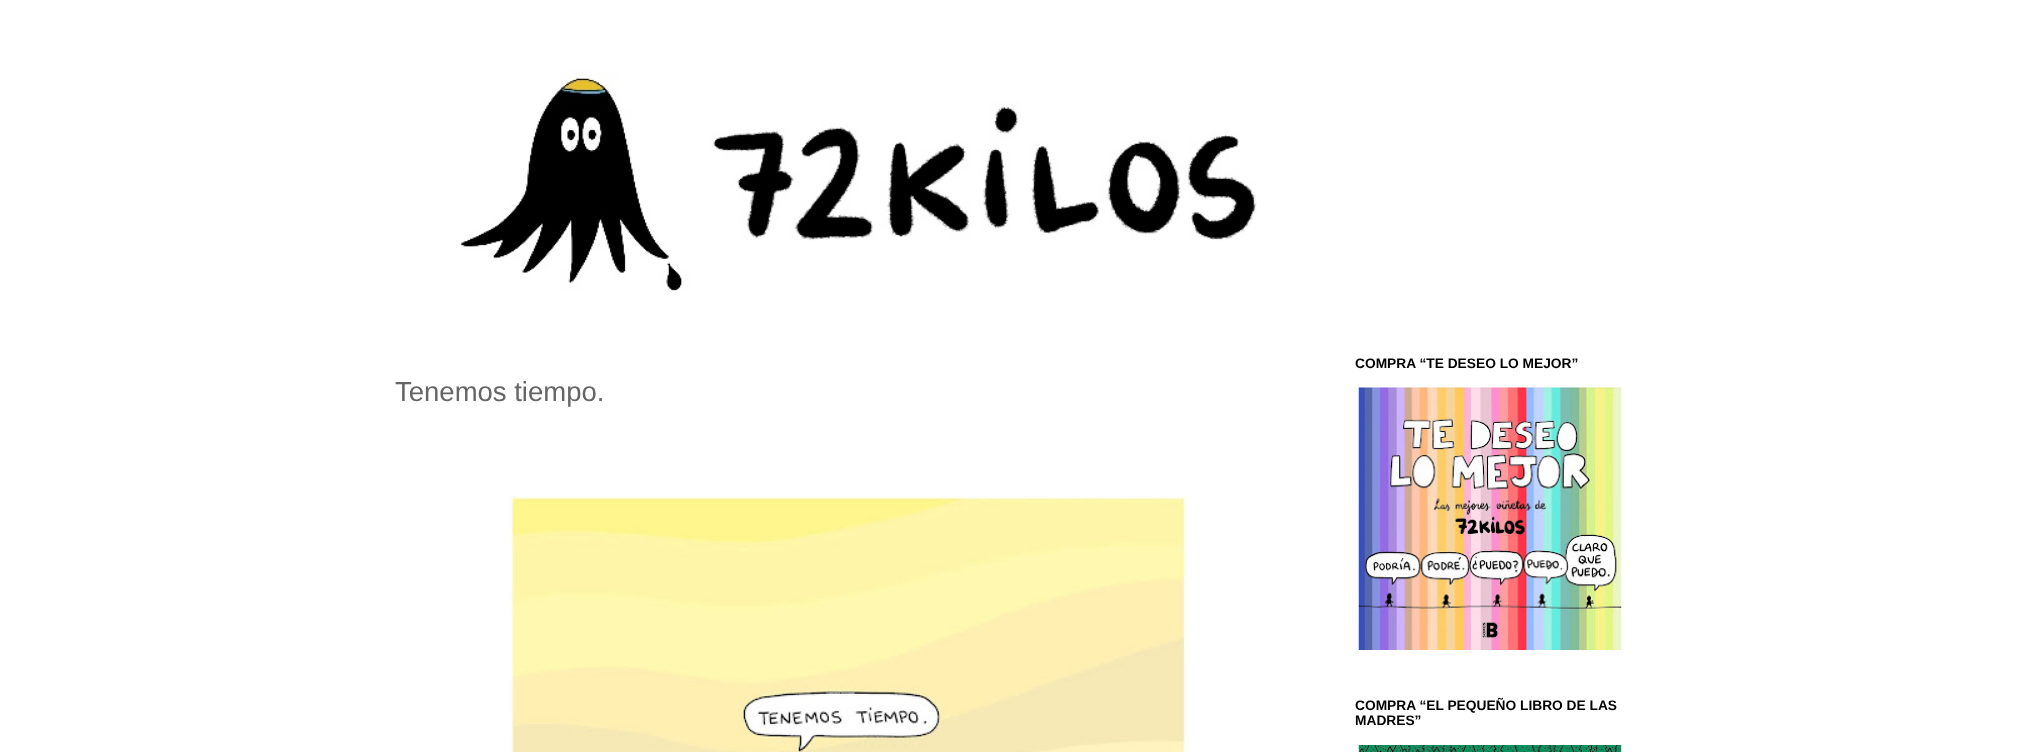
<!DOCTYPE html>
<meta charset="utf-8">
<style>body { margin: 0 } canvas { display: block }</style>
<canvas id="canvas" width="2035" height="752"></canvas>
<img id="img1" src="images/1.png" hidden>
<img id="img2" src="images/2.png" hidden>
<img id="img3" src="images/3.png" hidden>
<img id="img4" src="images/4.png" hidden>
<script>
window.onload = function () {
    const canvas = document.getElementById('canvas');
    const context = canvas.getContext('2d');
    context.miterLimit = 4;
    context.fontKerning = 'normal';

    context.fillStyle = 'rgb(255, 255, 255)';
    context.fillRect(0, 0, 2035, 752);
    context.drawImage(document.getElementById('img1'), 461, 70, 796, 221);
    context.drawImage(document.getElementById('img2'), 509, 496, 679, 256);
    context.drawImage(document.getElementById('img3'), 1358, 387, 264, 263);
    context.drawImage(document.getElementById('img4'), 1358, 745, 264, 7);
    context.font = '27.5px Liberation Sans';
    context.fillStyle = 'rgb(102, 102, 102)';
    context.fillText('Tenemos tiempo.', 395, 401);
    context.font = 'bold 13.75px Liberation Sans';
    context.fillStyle = 'rgb(0, 0, 0)';
    context.fillText('COMPRA “TE DESEO LO MEJOR”', 1355, 368);
    context.fillText('COMPRA “EL PEQUEÑO LIBRO DE LAS', 1355, 710);
    context.fillText('MADRES”', 1355, 725);
};
</script>
